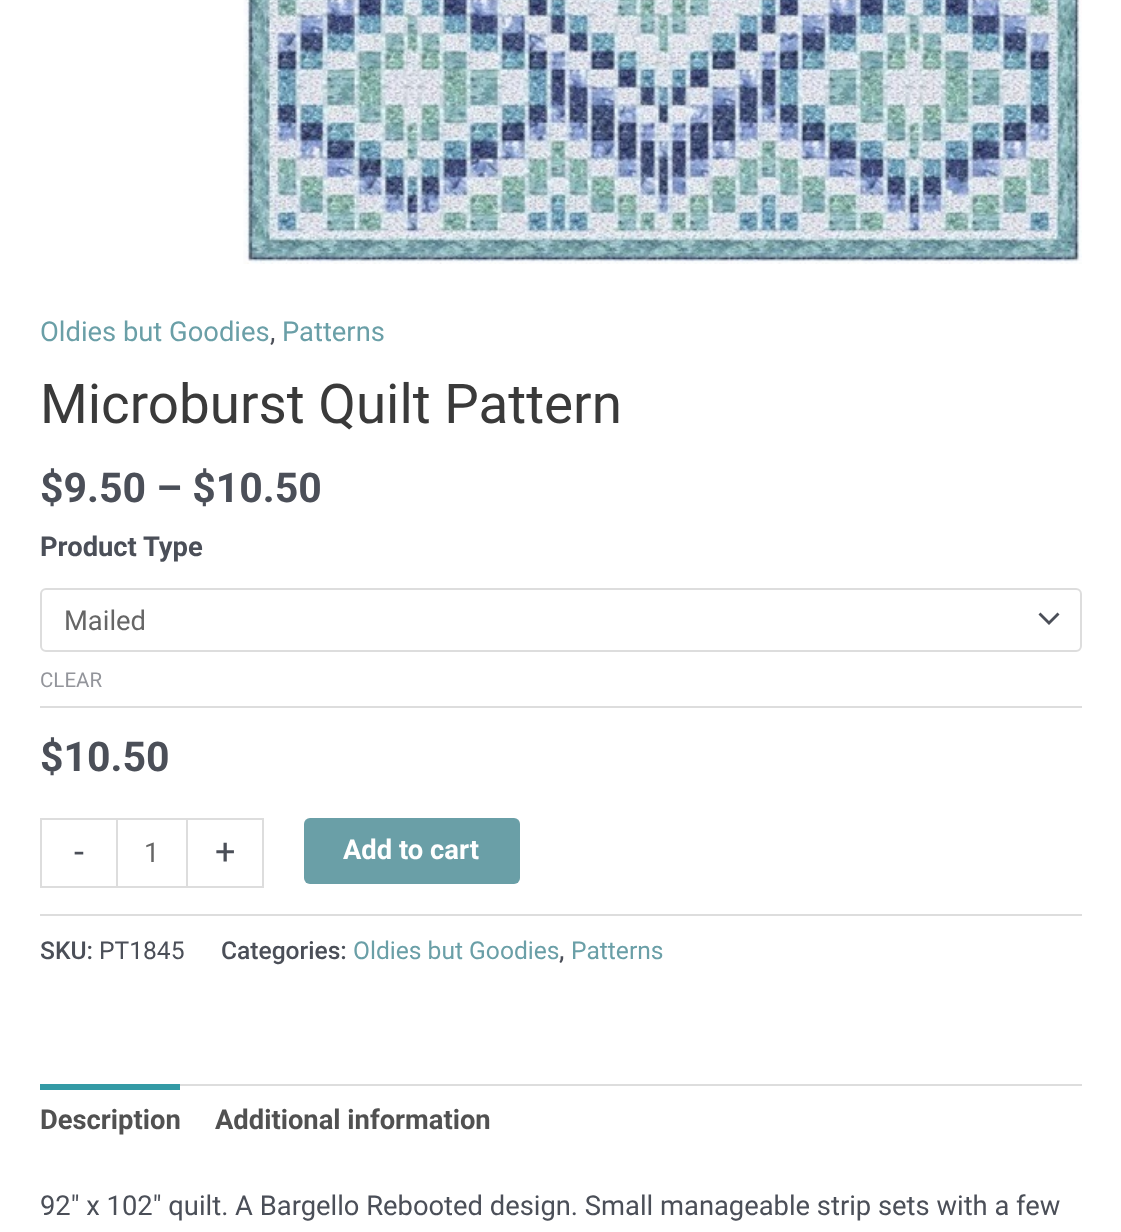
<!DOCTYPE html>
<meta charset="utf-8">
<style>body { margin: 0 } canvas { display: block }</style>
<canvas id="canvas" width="1121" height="1232"></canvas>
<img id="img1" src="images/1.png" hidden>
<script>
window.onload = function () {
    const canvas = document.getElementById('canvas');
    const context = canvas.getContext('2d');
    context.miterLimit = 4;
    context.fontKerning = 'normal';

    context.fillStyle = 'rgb(255, 255, 255)';
    context.fillRect(0, 0, 1121, 1232);
    context.drawImage(document.getElementById('img1'), 243, 0, 839, 264);
    context.fillStyle = 'rgb(221, 221, 221)';
    context.fillRect(40, 706, 1042, 2);
    context.fillStyle = 'rgb(75, 79, 88)';
    context.beginPath();
    context.moveTo(1038.5, 614.5);
    context.lineTo(1049, 625);
    context.lineTo(1059.5, 614.5);
    context.lineTo(1057.5, 612.5);
    context.lineTo(1049, 621);
    context.lineTo(1040.5, 612.5);
    context.closePath();
    context.fill();
    context.beginPath();
    context.roundRect(41, 589, 1040, 62, 5);
    context.strokeStyle = 'rgb(221, 221, 221)';
    context.lineWidth = 2;
    context.stroke();
    context.fillStyle = 'rgb(221, 221, 221)';
    context.fillRect(40, 818, 76, 2);
    context.fillRect(40, 886, 76, 2);
    context.fillRect(40, 818, 2, 70);
    context.strokeRect(117, 819, 70, 68);
    context.fillRect(188, 818, 76, 2);
    context.fillRect(262, 818, 2, 70);
    context.fillRect(188, 886, 76, 2);
    context.fillStyle = 'rgb(106, 159, 167)';
    context.beginPath();
    context.roundRect(304, 818, 216, 66, 6);
    context.fill();
    context.fillStyle = 'rgb(221, 221, 221)';
    context.fillRect(40, 914, 1042, 2);
    context.fillRect(180, 1084, 902, 2);
    context.fillStyle = 'rgb(51, 154, 165)';
    context.fillRect(40, 1084, 140, 6);
    context.font = '27.35px Roboto';
    context.fillStyle = 'rgb(106, 159, 167)';
    context.fillText('Oldies but Goodies', 40, 341);
    context.fillStyle = 'rgb(75, 79, 88)';
    context.fillText(',', 270, 341);
    context.fillStyle = 'rgb(106, 159, 167)';
    context.fillText('Patterns', 282, 341);
    context.font = '54.75px Roboto';
    context.fillStyle = 'rgb(58, 58, 58)';
    context.fillText('Microburst Quilt Pattern', 40, 423);
    context.font = 'bold 41px Roboto';
    context.fillStyle = 'rgb(75, 79, 88)';
    context.fillText('$9.50 – $10.50', 40, 502);
    context.font = 'bold 27.35px Roboto';
    context.fillText('Product Type', 40, 556);
    context.font = '27.35px Roboto';
    context.fillStyle = 'rgb(102, 102, 102)';
    context.fillText('Mailed', 64, 630);
    context.font = '20.5px Roboto';
    context.fillStyle = 'rgb(147, 149, 155)';
    context.fillText('CLEAR', 40, 687);
    context.font = 'bold 41px Roboto';
    context.fillStyle = 'rgb(75, 79, 88)';
    context.fillText('$10.50', 40, 771);
    context.font = '36px Roboto';
    context.fillText('-', 74, 864);
    context.font = '27.35px Roboto';
    context.fillStyle = 'rgb(102, 102, 102)';
    context.fillText('1', 144, 862);
    context.font = '36px Roboto';
    context.fillStyle = 'rgb(75, 79, 88)';
    context.fillText('+', 215, 864);
    context.font = 'bold 27.35px Roboto';
    context.fillStyle = 'rgb(255, 255, 255)';
    context.fillText('Add to cart', 343, 859);
    context.font = '500 24.6px Roboto';
    context.fillStyle = 'rgb(75, 79, 88)';
    context.fillText('SKU:', 40, 959);
    context.font = '24.6px Roboto';
    context.fillText('PT1845', 99, 959);
    context.font = '500 24.6px Roboto';
    context.fillText('Categories:', 221, 959);
    context.font = '24.6px Roboto';
    context.fillStyle = 'rgb(106, 159, 167)';
    context.fillText('Oldies but Goodies', 353, 959);
    context.font = '500 24.6px Roboto';
    context.fillStyle = 'rgb(75, 79, 88)';
    context.fillText(',', 559, 959);
    context.font = '24.6px Roboto';
    context.fillStyle = 'rgb(106, 159, 167)';
    context.fillText('Patterns', 571, 959);
    context.font = 'bold 27.35px Roboto';
    context.fillStyle = 'rgb(81, 81, 81)';
    context.fillText('Description', 40, 1129);
    context.fillText('Additional information', 215, 1129);
    context.font = '27.35px Roboto';
    context.fillStyle = 'rgb(75, 79, 88)';
    context.fillText('92″ x 102″ quilt. A Bargello Rebooted design. Small manageable strip sets with a few', 40, 1215);
};
</script>
